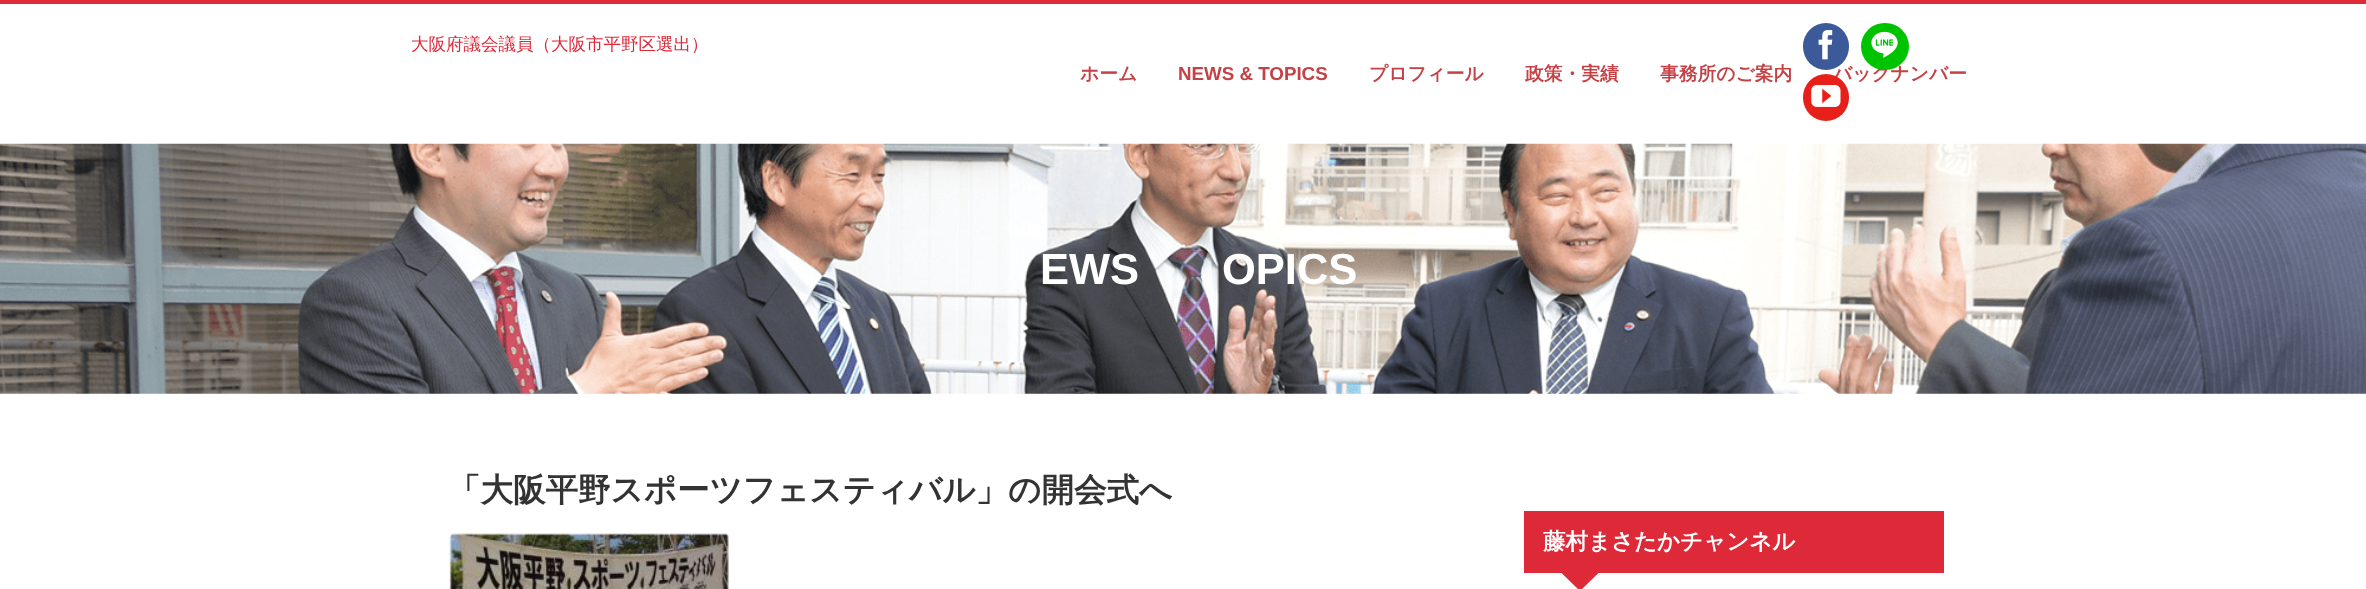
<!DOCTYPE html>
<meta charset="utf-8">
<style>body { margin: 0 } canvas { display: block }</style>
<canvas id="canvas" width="2366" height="589"></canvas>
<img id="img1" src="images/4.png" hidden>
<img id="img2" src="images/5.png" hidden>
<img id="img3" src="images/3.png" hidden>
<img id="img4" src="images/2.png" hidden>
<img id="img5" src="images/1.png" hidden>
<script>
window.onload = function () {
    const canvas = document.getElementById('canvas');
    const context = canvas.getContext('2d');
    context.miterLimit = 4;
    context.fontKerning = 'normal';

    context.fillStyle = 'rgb(255, 255, 255)';
    context.fillRect(0, 0, 2366, 589);
    context.fillStyle = 'rgb(222, 41, 57)';
    context.fillRect(0, 0, 2366, 4);
    context.drawImage(document.getElementById('img1'), 0, 143, 2366, 251);
    context.drawImage(document.getElementById('img2'), 448, 533, 281, 56);
    context.fillRect(1524, 511, 420, 62);
    context.beginPath();
    context.moveTo(1561, 572.5);
    context.lineTo(1599, 572.5);
    context.lineTo(1580, 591);
    context.closePath();
    context.fill();
    context.font = '500 17.5px WenQuanYi Zen Hei';
    context.fillText('大阪府議会議員（大阪市平野区選出）', 411, 50);
    context.font = 'bold 18.75px WenQuanYi Zen Hei';
    context.fillStyle = 'rgb(196, 65, 70)';
    context.fillText('ホーム', 1080, 80);
    context.font = 'bold 18.75px Liberation Sans';
    context.fillText('NEWS & TOPICS', 1178, 80);
    context.font = 'bold 18.75px WenQuanYi Zen Hei';
    context.fillText('プロフィール', 1369, 80);
    context.fillText('政策・実績', 1525, 80);
    context.fillText('事務所のご案内', 1660, 80);
    context.fillText('バックナンバー', 1833, 80);
    context.fillStyle = 'rgb(231, 33, 26)';
    context.beginPath();
    context.roundRect(1803, 74, 46, 47, 23);
    context.fill();
    context.drawImage(document.getElementById('img3'), 1811, 85, 30, 22);
    context.fillStyle = 'rgb(0, 195, 0)';
    context.beginPath();
    context.roundRect(1861, 23, 48, 47, 23.5);
    context.fill();
    context.drawImage(document.getElementById('img4'), 1871, 31, 27, 27);
    context.fillStyle = 'rgb(60, 90, 153)';
    context.beginPath();
    context.roundRect(1803, 23, 46, 47, 23);
    context.fill();
    context.drawImage(document.getElementById('img5'), 1818, 30, 15, 30);
    context.font = 'bold 43.5px Liberation Sans';
    context.fillStyle = 'rgb(255, 255, 255)';
    context.fillText('EWS', 1040, 284);
    context.fillText('OPICS', 1222, 284);
    context.font = 'bold 32.5px WenQuanYi Zen Hei';
    context.fillStyle = 'rgb(51, 51, 51)';
    context.fillText('「大阪平野スポーツフェスティバル」の開会式へ', 448, 501);
    context.font = 'bold 22.5px WenQuanYi Zen Hei';
    context.fillStyle = 'rgb(255, 255, 255)';
    context.fillText('藤村まさたかチャンネル', 1543, 549);
};
</script>
